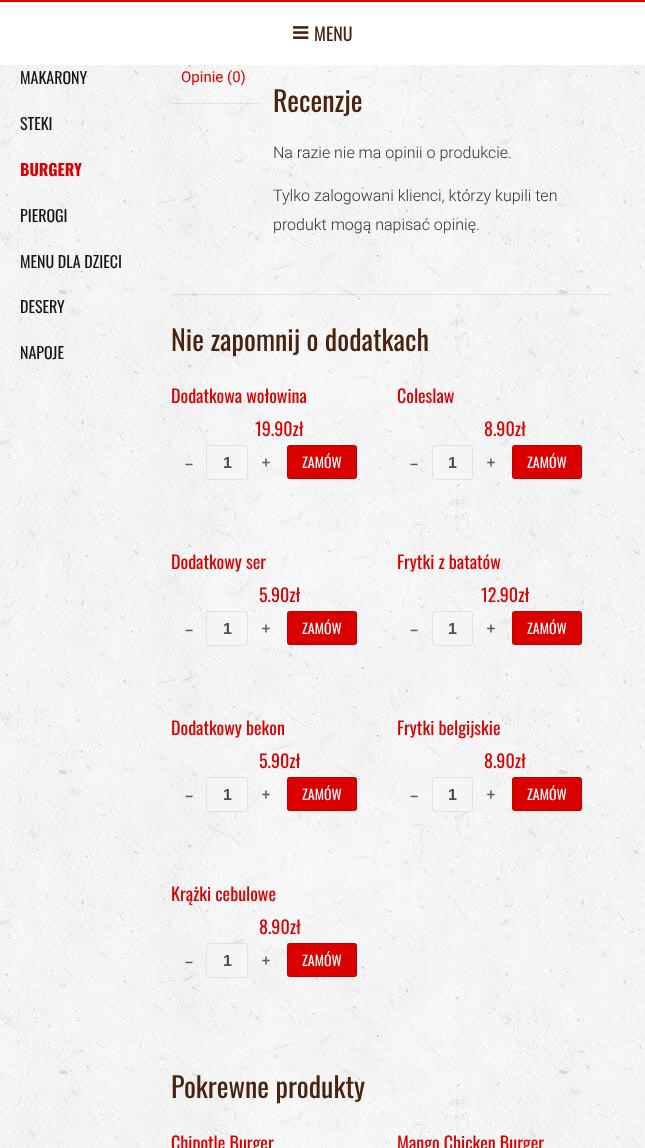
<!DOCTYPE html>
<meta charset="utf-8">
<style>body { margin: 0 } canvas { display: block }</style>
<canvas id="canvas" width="645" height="1148"></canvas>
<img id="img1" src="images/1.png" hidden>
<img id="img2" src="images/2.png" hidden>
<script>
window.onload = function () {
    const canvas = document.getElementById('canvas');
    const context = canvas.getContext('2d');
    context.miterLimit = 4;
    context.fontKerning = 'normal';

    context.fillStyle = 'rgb(255, 255, 255)';
    context.fillRect(0, 0, 645, 1148);
    context.drawImage(document.getElementById('img1'), 0, 65, 645, 1083);
    context.fillStyle = 'rgb(219, 0, 0)';
    context.fillRect(0, 0, 645, 2);
    context.drawImage(document.getElementById('img2'), 293, 26, 16, 13);
    context.fillStyle = 'rgba(0, 0, 0, 0.08)';
    context.fillRect(171, 294, 442, 1);
    context.fillRect(171, 103, 89, 1);
    context.fillStyle = 'rgb(245, 245, 245)';
    context.beginPath();
    context.roundRect(206.5, 445.5, 41, 34, 2.5);
    context.fill();
    context.strokeStyle = 'rgb(225, 225, 225)';
    context.stroke();
    context.fillStyle = 'rgb(219, 0, 0)';
    context.beginPath();
    context.roundRect(287, 445, 70, 34, 3);
    context.fill();
    context.beginPath();
    context.roundRect(287.5, 445.5, 69, 33, 2.5);
    context.strokeStyle = 'rgba(0, 0, 0, 0.14)';
    context.stroke();
    context.fillStyle = 'rgb(245, 245, 245)';
    context.beginPath();
    context.roundRect(432.5, 445.5, 40, 34, 2.5);
    context.fill();
    context.strokeStyle = 'rgb(225, 225, 225)';
    context.stroke();
    context.fillStyle = 'rgb(219, 0, 0)';
    context.beginPath();
    context.roundRect(512, 445, 70, 34, 3);
    context.fill();
    context.beginPath();
    context.roundRect(512.5, 445.5, 69, 33, 2.5);
    context.strokeStyle = 'rgba(0, 0, 0, 0.14)';
    context.stroke();
    context.fillStyle = 'rgb(245, 245, 245)';
    context.beginPath();
    context.roundRect(206, 611, 42, 35, 3);
    context.fill();
    context.beginPath();
    context.roundRect(206.5, 611.5, 41, 34, 2.5);
    context.strokeStyle = 'rgba(0, 0, 0, 0.08)';
    context.stroke();
    context.fillStyle = 'rgb(219, 0, 0)';
    context.beginPath();
    context.roundRect(287, 611, 70, 34, 3);
    context.fill();
    context.beginPath();
    context.roundRect(287.5, 611.5, 69, 33, 2.5);
    context.strokeStyle = 'rgba(0, 0, 0, 0.14)';
    context.stroke();
    context.fillStyle = 'rgb(245, 245, 245)';
    context.beginPath();
    context.roundRect(432, 611, 41, 35, 3);
    context.fill();
    context.beginPath();
    context.roundRect(432.5, 611.5, 40, 34, 2.5);
    context.strokeStyle = 'rgba(0, 0, 0, 0.08)';
    context.stroke();
    context.fillStyle = 'rgb(219, 0, 0)';
    context.beginPath();
    context.roundRect(512, 611, 70, 34, 3);
    context.fill();
    context.beginPath();
    context.roundRect(512.5, 611.5, 69, 33, 2.5);
    context.strokeStyle = 'rgba(0, 0, 0, 0.14)';
    context.stroke();
    context.fillStyle = 'rgb(245, 245, 245)';
    context.beginPath();
    context.roundRect(206, 777, 42, 35, 3);
    context.fill();
    context.beginPath();
    context.roundRect(206.5, 777.5, 41, 34, 2.5);
    context.strokeStyle = 'rgba(0, 0, 0, 0.08)';
    context.stroke();
    context.fillStyle = 'rgb(219, 0, 0)';
    context.beginPath();
    context.roundRect(287, 777, 70, 34, 3);
    context.fill();
    context.beginPath();
    context.roundRect(287.5, 777.5, 69, 33, 2.5);
    context.strokeStyle = 'rgba(0, 0, 0, 0.14)';
    context.stroke();
    context.fillStyle = 'rgb(245, 245, 245)';
    context.beginPath();
    context.roundRect(432.5, 777.5, 40, 34, 2.5);
    context.fill();
    context.strokeStyle = 'rgb(225, 225, 225)';
    context.stroke();
    context.fillStyle = 'rgb(219, 0, 0)';
    context.beginPath();
    context.roundRect(512, 777, 70, 34, 3);
    context.fill();
    context.beginPath();
    context.roundRect(512.5, 777.5, 69, 33, 2.5);
    context.strokeStyle = 'rgba(0, 0, 0, 0.14)';
    context.stroke();
    context.fillStyle = 'rgb(245, 245, 245)';
    context.beginPath();
    context.roundRect(206, 943, 42, 35, 3);
    context.fill();
    context.beginPath();
    context.roundRect(206.5, 943.5, 41, 34, 2.5);
    context.strokeStyle = 'rgba(0, 0, 0, 0.08)';
    context.stroke();
    context.fillStyle = 'rgb(219, 0, 0)';
    context.beginPath();
    context.roundRect(287, 943, 70, 34, 3);
    context.fill();
    context.beginPath();
    context.roundRect(287.5, 943.5, 69, 33, 2.5);
    context.strokeStyle = 'rgba(0, 0, 0, 0.14)';
    context.stroke();
    context.font = '18px Oswald';
    context.fillStyle = 'rgb(73, 35, 15)';
    context.fillText('MENU', 314, 41);
    context.font = '16px Oswald';
    context.fillStyle = 'rgb(20, 20, 20)';
    context.fillText('MAKARONY', 20, 84);
    context.fillText('STEKI', 20, 130);
    context.font = 'bold 16px Oswald';
    context.fillStyle = 'rgb(219, 0, 0)';
    context.fillText('BURGERY', 20, 176);
    context.font = '16px Oswald';
    context.fillStyle = 'rgb(20, 20, 20)';
    context.fillText('PIEROGI', 20, 222);
    context.fillText('MENU DLA DZIECI', 20, 268);
    context.fillText('DESERY', 20, 313);
    context.fillText('NAPOJE', 20, 359);
    context.font = '15px Roboto';
    context.fillStyle = 'rgb(219, 0, 0)';
    context.fillText('Opinie (0)', 181, 82);
    context.font = '28px Oswald';
    context.fillStyle = 'rgb(73, 35, 15)';
    context.fillText('Recenzje', 273, 112);
    context.font = '300 16px Roboto';
    context.fillStyle = 'rgb(51, 51, 51)';
    context.fillText('Na razie nie ma opinii o produkcie.', 273, 158);
    context.fillText('Tylko zalogowani klienci, którzy kupili ten', 273, 201);
    context.fillText('produkt mogą napisać opinię.', 273, 230);
    context.font = '28px Oswald';
    context.fillStyle = 'rgb(73, 35, 15)';
    context.fillText('Nie zapomnij o dodatkach', 171, 351);
    context.font = '18px Oswald';
    context.fillStyle = 'rgb(219, 0, 0)';
    context.fillText('Dodatkowa wołowina', 171, 403);
    context.fillText('19.90zł', 255, 436);
    context.font = '24px Raleway';
    context.fillStyle = 'rgb(94, 94, 94)';
    context.fillText('-', 184, 471);
    context.font = 'bold 16px Liberation Sans';
    context.fillStyle = 'rgb(79, 79, 79)';
    context.fillText('1', 223, 468);
    context.font = '24px Raleway';
    context.fillStyle = 'rgb(94, 94, 94)';
    context.fillText('+', 261, 471);
    context.font = '14px Oswald';
    context.fillStyle = 'rgb(255, 255, 255)';
    context.fillText('ZAMÓW', 302, 468);
    context.font = '18px Oswald';
    context.fillStyle = 'rgb(219, 0, 0)';
    context.fillText('Coleslaw', 397, 403);
    context.fillText('8.90zł', 484, 436);
    context.font = '24px Raleway';
    context.fillStyle = 'rgb(94, 94, 94)';
    context.fillText('-', 409, 471);
    context.font = 'bold 16px Liberation Sans';
    context.fillStyle = 'rgb(79, 79, 79)';
    context.fillText('1', 448, 468);
    context.font = '24px Raleway';
    context.fillStyle = 'rgb(94, 94, 94)';
    context.fillText('+', 486, 471);
    context.font = '14px Oswald';
    context.fillStyle = 'rgb(255, 255, 255)';
    context.fillText('ZAMÓW', 527, 468);
    context.font = '18px Oswald';
    context.fillStyle = 'rgb(219, 0, 0)';
    context.fillText('Dodatkowy ser', 171, 569);
    context.fillText('5.90zł', 259, 602);
    context.font = '24px Raleway';
    context.fillStyle = 'rgb(94, 94, 94)';
    context.fillText('-', 184, 637);
    context.font = 'bold 16px Liberation Sans';
    context.fillStyle = 'rgb(79, 79, 79)';
    context.fillText('1', 223, 634);
    context.font = '24px Raleway';
    context.fillStyle = 'rgb(94, 94, 94)';
    context.fillText('+', 261, 637);
    context.font = '14px Oswald';
    context.fillStyle = 'rgb(255, 255, 255)';
    context.fillText('ZAMÓW', 302, 634);
    context.font = '18px Oswald';
    context.fillStyle = 'rgb(219, 0, 0)';
    context.fillText('Frytki z batatów', 397, 569);
    context.fillText('12.90zł', 481, 602);
    context.font = '24px Raleway';
    context.fillStyle = 'rgb(94, 94, 94)';
    context.fillText('-', 409, 637);
    context.font = 'bold 16px Liberation Sans';
    context.fillStyle = 'rgb(79, 79, 79)';
    context.fillText('1', 448, 634);
    context.font = '24px Raleway';
    context.fillStyle = 'rgb(94, 94, 94)';
    context.fillText('+', 486, 637);
    context.font = '14px Oswald';
    context.fillStyle = 'rgb(255, 255, 255)';
    context.fillText('ZAMÓW', 527, 634);
    context.font = '18px Oswald';
    context.fillStyle = 'rgb(219, 0, 0)';
    context.fillText('Dodatkowy bekon', 171, 735);
    context.fillText('5.90zł', 259, 768);
    context.font = '24px Raleway';
    context.fillStyle = 'rgb(94, 94, 94)';
    context.fillText('-', 184, 803);
    context.font = 'bold 16px Liberation Sans';
    context.fillStyle = 'rgb(79, 79, 79)';
    context.fillText('1', 223, 800);
    context.font = '24px Raleway';
    context.fillStyle = 'rgb(94, 94, 94)';
    context.fillText('+', 261, 803);
    context.font = '14px Oswald';
    context.fillStyle = 'rgb(255, 255, 255)';
    context.fillText('ZAMÓW', 302, 800);
    context.font = '18px Oswald';
    context.fillStyle = 'rgb(219, 0, 0)';
    context.fillText('Frytki belgijskie', 397, 735);
    context.fillText('8.90zł', 484, 768);
    context.font = '24px Raleway';
    context.fillStyle = 'rgb(94, 94, 94)';
    context.fillText('-', 409, 803);
    context.font = 'bold 16px Liberation Sans';
    context.fillStyle = 'rgb(79, 79, 79)';
    context.fillText('1', 448, 800);
    context.font = '24px Raleway';
    context.fillStyle = 'rgb(94, 94, 94)';
    context.fillText('+', 486, 803);
    context.font = '14px Oswald';
    context.fillStyle = 'rgb(255, 255, 255)';
    context.fillText('ZAMÓW', 527, 800);
    context.font = '18px Oswald';
    context.fillStyle = 'rgb(219, 0, 0)';
    context.fillText('Krążki cebulowe', 171, 901);
    context.fillText('8.90zł', 259, 934);
    context.font = '24px Raleway';
    context.fillStyle = 'rgb(94, 94, 94)';
    context.fillText('-', 184, 969);
    context.font = 'bold 16px Liberation Sans';
    context.fillStyle = 'rgb(79, 79, 79)';
    context.fillText('1', 223, 966);
    context.font = '24px Raleway';
    context.fillStyle = 'rgb(94, 94, 94)';
    context.fillText('+', 261, 969);
    context.font = '14px Oswald';
    context.fillStyle = 'rgb(255, 255, 255)';
    context.fillText('ZAMÓW', 302, 966);
    context.font = '28px Oswald';
    context.fillStyle = 'rgb(73, 35, 15)';
    context.fillText('Pokrewne produkty', 171, 1098);
    context.font = '18px Oswald';
    context.fillStyle = 'rgb(219, 0, 0)';
    context.fillText('Chipotle Burger', 171, 1150);
    context.fillText('Mango Chicken Burger', 397, 1150);
};
</script>
